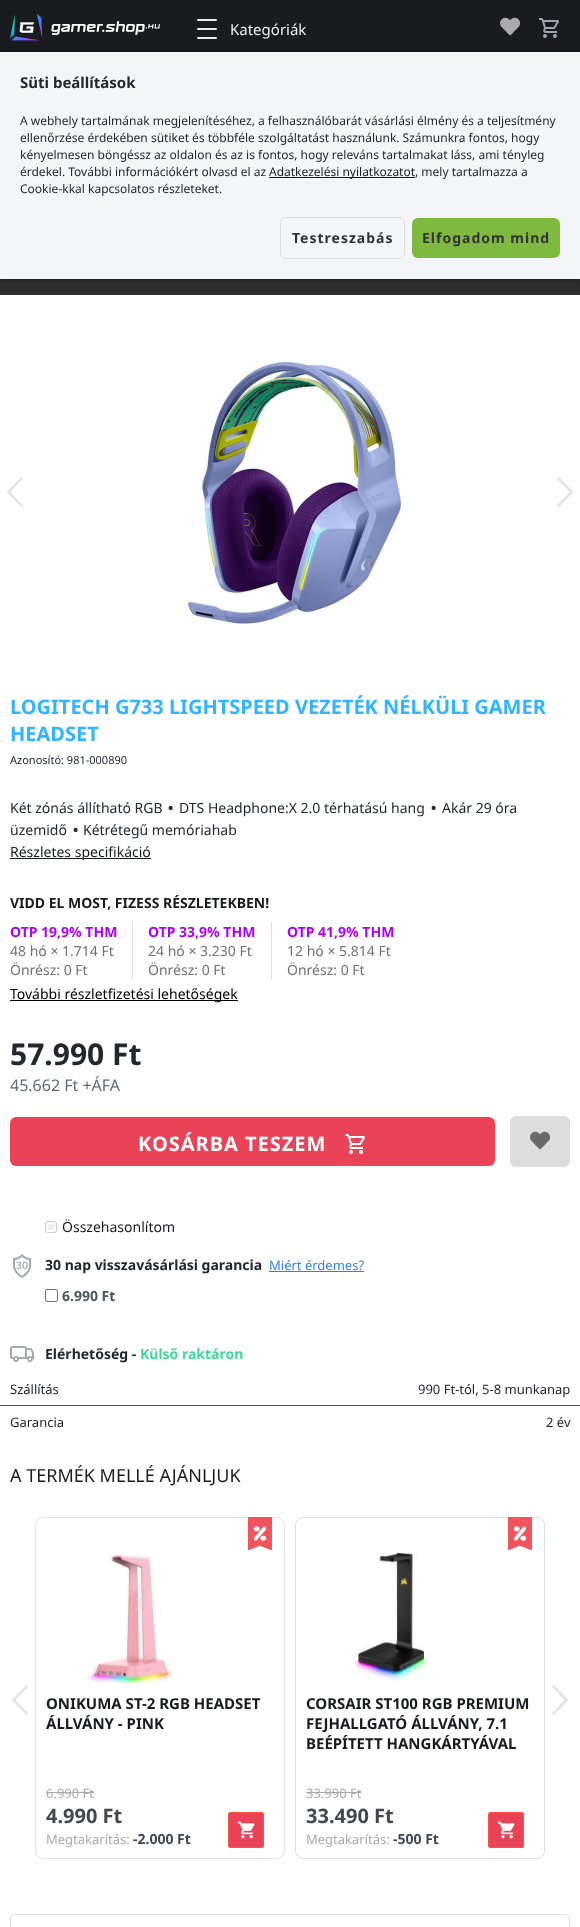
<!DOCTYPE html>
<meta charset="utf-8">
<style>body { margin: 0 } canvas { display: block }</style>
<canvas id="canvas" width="580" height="1927"></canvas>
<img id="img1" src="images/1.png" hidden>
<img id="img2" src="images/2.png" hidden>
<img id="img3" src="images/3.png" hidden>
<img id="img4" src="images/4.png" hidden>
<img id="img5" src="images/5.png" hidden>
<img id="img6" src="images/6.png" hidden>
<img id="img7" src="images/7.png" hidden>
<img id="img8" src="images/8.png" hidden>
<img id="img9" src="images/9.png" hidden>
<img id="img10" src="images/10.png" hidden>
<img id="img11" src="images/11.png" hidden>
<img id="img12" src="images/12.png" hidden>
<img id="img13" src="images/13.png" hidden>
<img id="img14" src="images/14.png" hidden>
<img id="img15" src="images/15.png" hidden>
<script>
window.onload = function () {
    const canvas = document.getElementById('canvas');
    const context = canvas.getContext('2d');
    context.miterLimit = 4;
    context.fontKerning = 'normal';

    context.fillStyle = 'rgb(45, 45, 45)';
    context.fillRect(0, 0, 580, 1927);
    context.fillStyle = 'rgb(26, 27, 31)';
    context.fillRect(0, 0, 580, 52);
    context.drawImage(document.getElementById('img1'), 10, 14, 150, 27);
    context.fillStyle = 'rgb(238, 238, 238)';
    context.beginPath();
    context.roundRect(197, 19, 20, 2, 1);
    context.fill();
    context.beginPath();
    context.roundRect(197, 28, 20, 2, 1);
    context.fill();
    context.beginPath();
    context.roundRect(197, 37, 20, 2, 1);
    context.fill();
    context.drawImage(document.getElementById('img2'), 500, 17, 20, 19);
    context.drawImage(document.getElementById('img3'), 539, 18, 20, 20);
    context.fillStyle = 'rgba(0, 0, 0, 0.5)';
    context.filter = 'blur(2.5px)';
    context.beginPath();
    context.rect(0, 52, 580, 227);
    context.fill();
    context.filter = 'none';
    context.fillStyle = 'rgb(244, 245, 247)';
    context.fillRect(0, 52, 580, 227);
    context.fillStyle = 'rgb(26, 27, 31)';
    context.fillRect(269, 177, 146, 1);
    context.beginPath();
    context.roundRect(280.5, 217.5, 124, 41, 5.5);
    context.strokeStyle = 'rgb(221, 221, 221)';
    context.stroke();
    context.fillStyle = 'rgb(126, 186, 64)';
    context.beginPath();
    context.roundRect(412, 218, 148, 40, 6);
    context.fill();
    context.fillStyle = 'rgb(255, 255, 255)';
    context.fillRect(0, 295, 580, 1632);
    context.drawImage(document.getElementById('img4'), 184, 358, 223, 271);
    context.drawImage(document.getElementById('img5'), 6, 477, 18, 30);
    context.drawImage(document.getElementById('img6'), 557, 477, 17, 30);
    context.fillStyle = 'rgb(26, 27, 31)';
    context.fillRect(10, 858, 141, 1);
    context.fillStyle = 'rgb(221, 221, 221)';
    context.fillRect(132, 922, 1, 57);
    context.fillRect(271, 922, 1, 57);
    context.fillStyle = 'rgb(0, 0, 0)';
    context.fillRect(10, 1000, 228, 1);
    context.fillStyle = 'rgb(234, 66, 86)';
    context.beginPath();
    context.roundRect(10, 1117, 485, 49, 6);
    context.fill();
    context.drawImage(document.getElementById('img7'), 345, 1134, 20, 20);
    context.fillStyle = 'rgb(221, 221, 221)';
    context.beginPath();
    context.roundRect(510, 1116, 60, 51, 6);
    context.fill();
    context.drawImage(document.getElementById('img8'), 530, 1131, 20, 19);
    context.beginPath();
    context.roundRect(45.5, 1221.5, 11, 11, 2.5);
    context.strokeStyle = 'rgb(204, 204, 204)';
    context.stroke();
    context.fillStyle = 'rgb(238, 238, 238)';
    context.beginPath();
    context.roundRect(48, 1224, 6, 6, 2);
    context.fill();
    context.drawImage(document.getElementById('img9'), 13, 1254, 18, 24);
    context.fillStyle = 'rgb(47, 128, 237)';
    context.fillRect(269, 1271, 95, 1);
    context.beginPath();
    context.roundRect(45.5, 1289.5, 12, 12, 1.5);
    context.strokeStyle = 'rgb(118, 118, 118)';
    context.stroke();
    context.drawImage(document.getElementById('img10'), 10, 1346, 24, 16);
    context.fillStyle = 'rgb(81, 82, 88)';
    context.fillRect(0, 1405, 580, 1);
    context.drawImage(document.getElementById('img5'), 11, 1685, 18, 30);
    context.beginPath();
    context.roundRect(35.5, 1517.5, 249, 341, 7.5);
    context.strokeStyle = 'rgb(224, 224, 224)';
    context.stroke();
    context.fillStyle = 'rgb(255, 255, 255)';
    context.beginPath();
    context.roundRect(36, 1518, 248, 340, 8);
    context.fill();
    context.drawImage(document.getElementById('img11'), 248, 1517, 24, 33);
    context.drawImage(document.getElementById('img12'), 84, 1553, 92, 130);
    context.fillStyle = 'rgb(170, 170, 170)';
    context.fillRect(46, 1792, 48, 1);
    context.fillStyle = 'rgb(234, 66, 86)';
    context.beginPath();
    context.roundRect(228, 1812, 36, 36, 3);
    context.fill();
    context.drawImage(document.getElementById('img13'), 237, 1821, 18, 18);
    context.beginPath();
    context.roundRect(228.5, 1812.5, 35, 35, 2.5);
    context.strokeStyle = 'rgb(255, 83, 65)';
    context.stroke();
    context.beginPath();
    context.roundRect(295.5, 1517.5, 249, 341, 7.5);
    context.strokeStyle = 'rgb(224, 224, 224)';
    context.stroke();
    context.fillStyle = 'rgb(255, 255, 255)';
    context.beginPath();
    context.roundRect(296, 1518, 248, 340, 8);
    context.fill();
    context.drawImage(document.getElementById('img11'), 508, 1517, 24, 33);
    context.drawImage(document.getElementById('img14'), 351, 1552, 78, 130);
    context.fillStyle = 'rgb(170, 170, 170)';
    context.fillRect(306, 1792, 55, 1);
    context.fillStyle = 'rgb(234, 66, 86)';
    context.beginPath();
    context.roundRect(488, 1812, 36, 36, 3);
    context.fill();
    context.drawImage(document.getElementById('img13'), 497, 1821, 18, 18);
    context.beginPath();
    context.roundRect(488.5, 1812.5, 35, 35, 2.5);
    context.strokeStyle = 'rgb(255, 83, 65)';
    context.stroke();
    context.drawImage(document.getElementById('img15'), 552, 1685, 17, 30);
    context.beginPath();
    context.roundRect(10.5, 1914.5, 559, 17, 3.5);
    context.strokeStyle = 'rgb(222, 222, 222)';
    context.stroke();
    context.font = '15px Noto Sans';
    context.fillStyle = 'rgb(238, 238, 238)';
    context.fillText('Kategóriák', 230, 35);
    context.font = 'bold 15px Noto Sans';
    context.fillStyle = 'rgb(36, 40, 46)';
    context.fillText('Süti beállítások', 20, 88);
    context.font = '12px Noto Sans';
    context.fillText('A webhely tartalmának megjelenítéséhez, a felhasználóbarát vásárlási élmény és a teljesítmény', 20, 125);
    context.fillText('ellenőrzése érdekében sütiket és többféle szolgáltatást használunk. Számunkra fontos, hogy', 20, 142);
    context.fillText('kényelmesen böngéssz az oldalon és az is fontos, hogy releváns tartalmakat láss, ami tényleg', 20, 159);
    context.fillText('érdekel. További információkért olvasd el az', 20, 176);
    context.fillStyle = 'rgb(26, 27, 31)';
    context.fillText('Adatkezelési nyilatkozatot', 269, 176);
    context.fillStyle = 'rgb(36, 40, 46)';
    context.fillText(', mely tartalmazza a', 415, 176);
    context.fillText('Cookie-kkal kapcsolatos részleteket.', 20, 193);
    context.letterSpacing = '1px';
    context.font = 'bold 14px Noto Sans';
    context.fillStyle = 'rgb(51, 51, 51)';
    context.fillText('Testreszabás', 292, 243);
    context.fillText('Elfogadom mind', 422, 243);
    context.letterSpacing = '0px';
    context.font = 'bold 20px Noto Sans';
    context.fillStyle = 'rgb(49, 181, 255)';
    context.fillText('LOGITECH G733 LIGHTSPEED VEZETÉK NÉLKÜLI GAMER', 10, 714);
    context.fillText('HEADSET', 10, 741);
    context.font = '11px Noto Sans';
    context.fillStyle = 'rgb(36, 40, 46)';
    context.fillText('Azonosító: 981-000890', 10, 764);
    context.font = '14px Noto Sans';
    context.fillText('Két zónás állítható RGB', 10, 813);
    context.font = 'bold 14px Noto Sans';
    context.fillText('•', 168, 813);
    context.font = '14px Noto Sans';
    context.fillText('DTS Headphone:X 2.0 térhatású hang', 179, 813);
    context.font = 'bold 14px Noto Sans';
    context.fillText('•', 431, 813);
    context.font = '14px Noto Sans';
    context.fillText('Akár 29 óra', 442, 813);
    context.fillText('üzemidő', 10, 835);
    context.font = 'bold 14px Noto Sans';
    context.fillText('•', 73, 835);
    context.font = '14px Noto Sans';
    context.fillText('Kétrétegű memóriahab', 83, 835);
    context.fillStyle = 'rgb(26, 27, 31)';
    context.fillText('Részletes specifikáció', 10, 857);
    context.font = 'bold 14px Noto Sans';
    context.fillText('VIDD EL MOST, FIZESS RÉSZLETEKBEN!', 10, 908);
    context.fillStyle = 'rgb(173, 0, 255)';
    context.fillText('OTP 19,9% THM', 10, 937);
    context.font = '14px Noto Sans';
    context.fillStyle = 'rgb(113, 113, 114)';
    context.fillText('48 hó × 1.714 Ft', 10, 956);
    context.fillText('Önrész: 0 Ft', 10, 975);
    context.font = 'bold 14px Noto Sans';
    context.fillStyle = 'rgb(173, 0, 255)';
    context.fillText('OTP 33,9% THM', 148, 937);
    context.font = '14px Noto Sans';
    context.fillStyle = 'rgb(113, 113, 114)';
    context.fillText('24 hó × 3.230 Ft', 148, 956);
    context.fillText('Önrész: 0 Ft', 148, 975);
    context.font = 'bold 14px Noto Sans';
    context.fillStyle = 'rgb(173, 0, 255)';
    context.fillText('OTP 41,9% THM', 287, 937);
    context.font = '14px Noto Sans';
    context.fillStyle = 'rgb(113, 113, 114)';
    context.fillText('12 hó × 5.814 Ft', 287, 956);
    context.fillText('Önrész: 0 Ft', 287, 975);
    context.fillStyle = 'rgb(0, 0, 0)';
    context.fillText('További részletfizetési lehetőségek', 10, 999);
    context.font = 'bold 30px Noto Sans';
    context.fillStyle = 'rgb(36, 40, 46)';
    context.fillText('57.990 Ft', 10, 1065);
    context.font = '16px Noto Sans';
    context.fillStyle = 'rgb(101, 105, 118)';
    context.fillText('45.662 Ft +ÁFA', 10, 1091);
    context.letterSpacing = '1px';
    context.font = 'bold 20px Noto Sans';
    context.fillStyle = 'rgb(255, 255, 255)';
    context.fillText('KOSÁRBA TESZEM', 138, 1151);
    context.letterSpacing = '0px';
    context.font = '14px Noto Sans';
    context.fillStyle = 'rgb(26, 27, 31)';
    context.fillText('Összehasonlítom', 62, 1232);
    context.font = 'bold 14px Noto Sans';
    context.fillStyle = 'rgb(36, 40, 46)';
    context.fillText('30 nap visszavásárlási garancia', 45, 1270);
    context.font = '13px Noto Sans';
    context.fillStyle = 'rgb(47, 128, 237)';
    context.fillText('Miért érdemes?', 269, 1270);
    context.font = 'bold 14px Noto Sans';
    context.fillStyle = 'rgb(77, 83, 87)';
    context.fillText('6.990 Ft', 62, 1301);
    context.fillStyle = 'rgb(36, 40, 46)';
    context.fillText('Elérhetőség -', 45, 1359);
    context.fillStyle = 'rgb(59, 218, 155)';
    context.fillText('Külső raktáron', 140, 1359);
    context.font = '13px Noto Sans';
    context.fillStyle = 'rgb(36, 40, 46)';
    context.fillText('Szállítás', 10, 1394);
    context.fillText('990 Ft-tól, 5-8 munkanap', 418, 1394);
    context.fillText('Garancia', 10, 1427);
    context.fillText('2 év', 546, 1427);
    context.font = '18px Noto Sans';
    context.fillStyle = 'rgb(26, 27, 31)';
    context.fillText('A TERMÉK MELLÉ AJÁNLJUK', 10, 1482);
    context.font = 'bold 15px Noto Sans';
    context.fillText('ONIKUMA ST-2 RGB HEADSET', 46, 1709);
    context.fillText('ÁLLVÁNY - PINK', 46, 1729);
    context.font = '13px Noto Sans';
    context.fillStyle = 'rgb(170, 170, 170)';
    context.fillText('6.990 Ft', 46, 1798);
    context.font = 'bold 20px Noto Sans';
    context.fillStyle = 'rgb(67, 71, 80)';
    context.fillText('4.990 Ft', 46, 1823);
    context.font = '13px Noto Sans';
    context.fillStyle = 'rgb(170, 170, 170)';
    context.fillText('Megtakarítás:', 46, 1844);
    context.font = 'bold 14px Noto Sans';
    context.fillStyle = 'rgb(67, 71, 80)';
    context.fillText('-2.000 Ft', 133, 1844);
    context.font = 'bold 15px Noto Sans';
    context.fillStyle = 'rgb(26, 27, 31)';
    context.fillText('CORSAIR ST100 RGB PREMIUM', 306, 1709);
    context.fillText('FEJHALLGATÓ ÁLLVÁNY, 7.1', 306, 1729);
    context.fillText('BEÉPÍTETT HANGKÁRTYÁVAL', 306, 1749);
    context.font = '13px Noto Sans';
    context.fillStyle = 'rgb(170, 170, 170)';
    context.fillText('33.990 Ft', 306, 1798);
    context.font = 'bold 20px Noto Sans';
    context.fillStyle = 'rgb(67, 71, 80)';
    context.fillText('33.490 Ft', 306, 1823);
    context.font = '13px Noto Sans';
    context.fillStyle = 'rgb(170, 170, 170)';
    context.fillText('Megtakarítás:', 306, 1844);
    context.font = 'bold 14px Noto Sans';
    context.fillStyle = 'rgb(67, 71, 80)';
    context.fillText('-500 Ft', 393, 1844);
};
</script>
